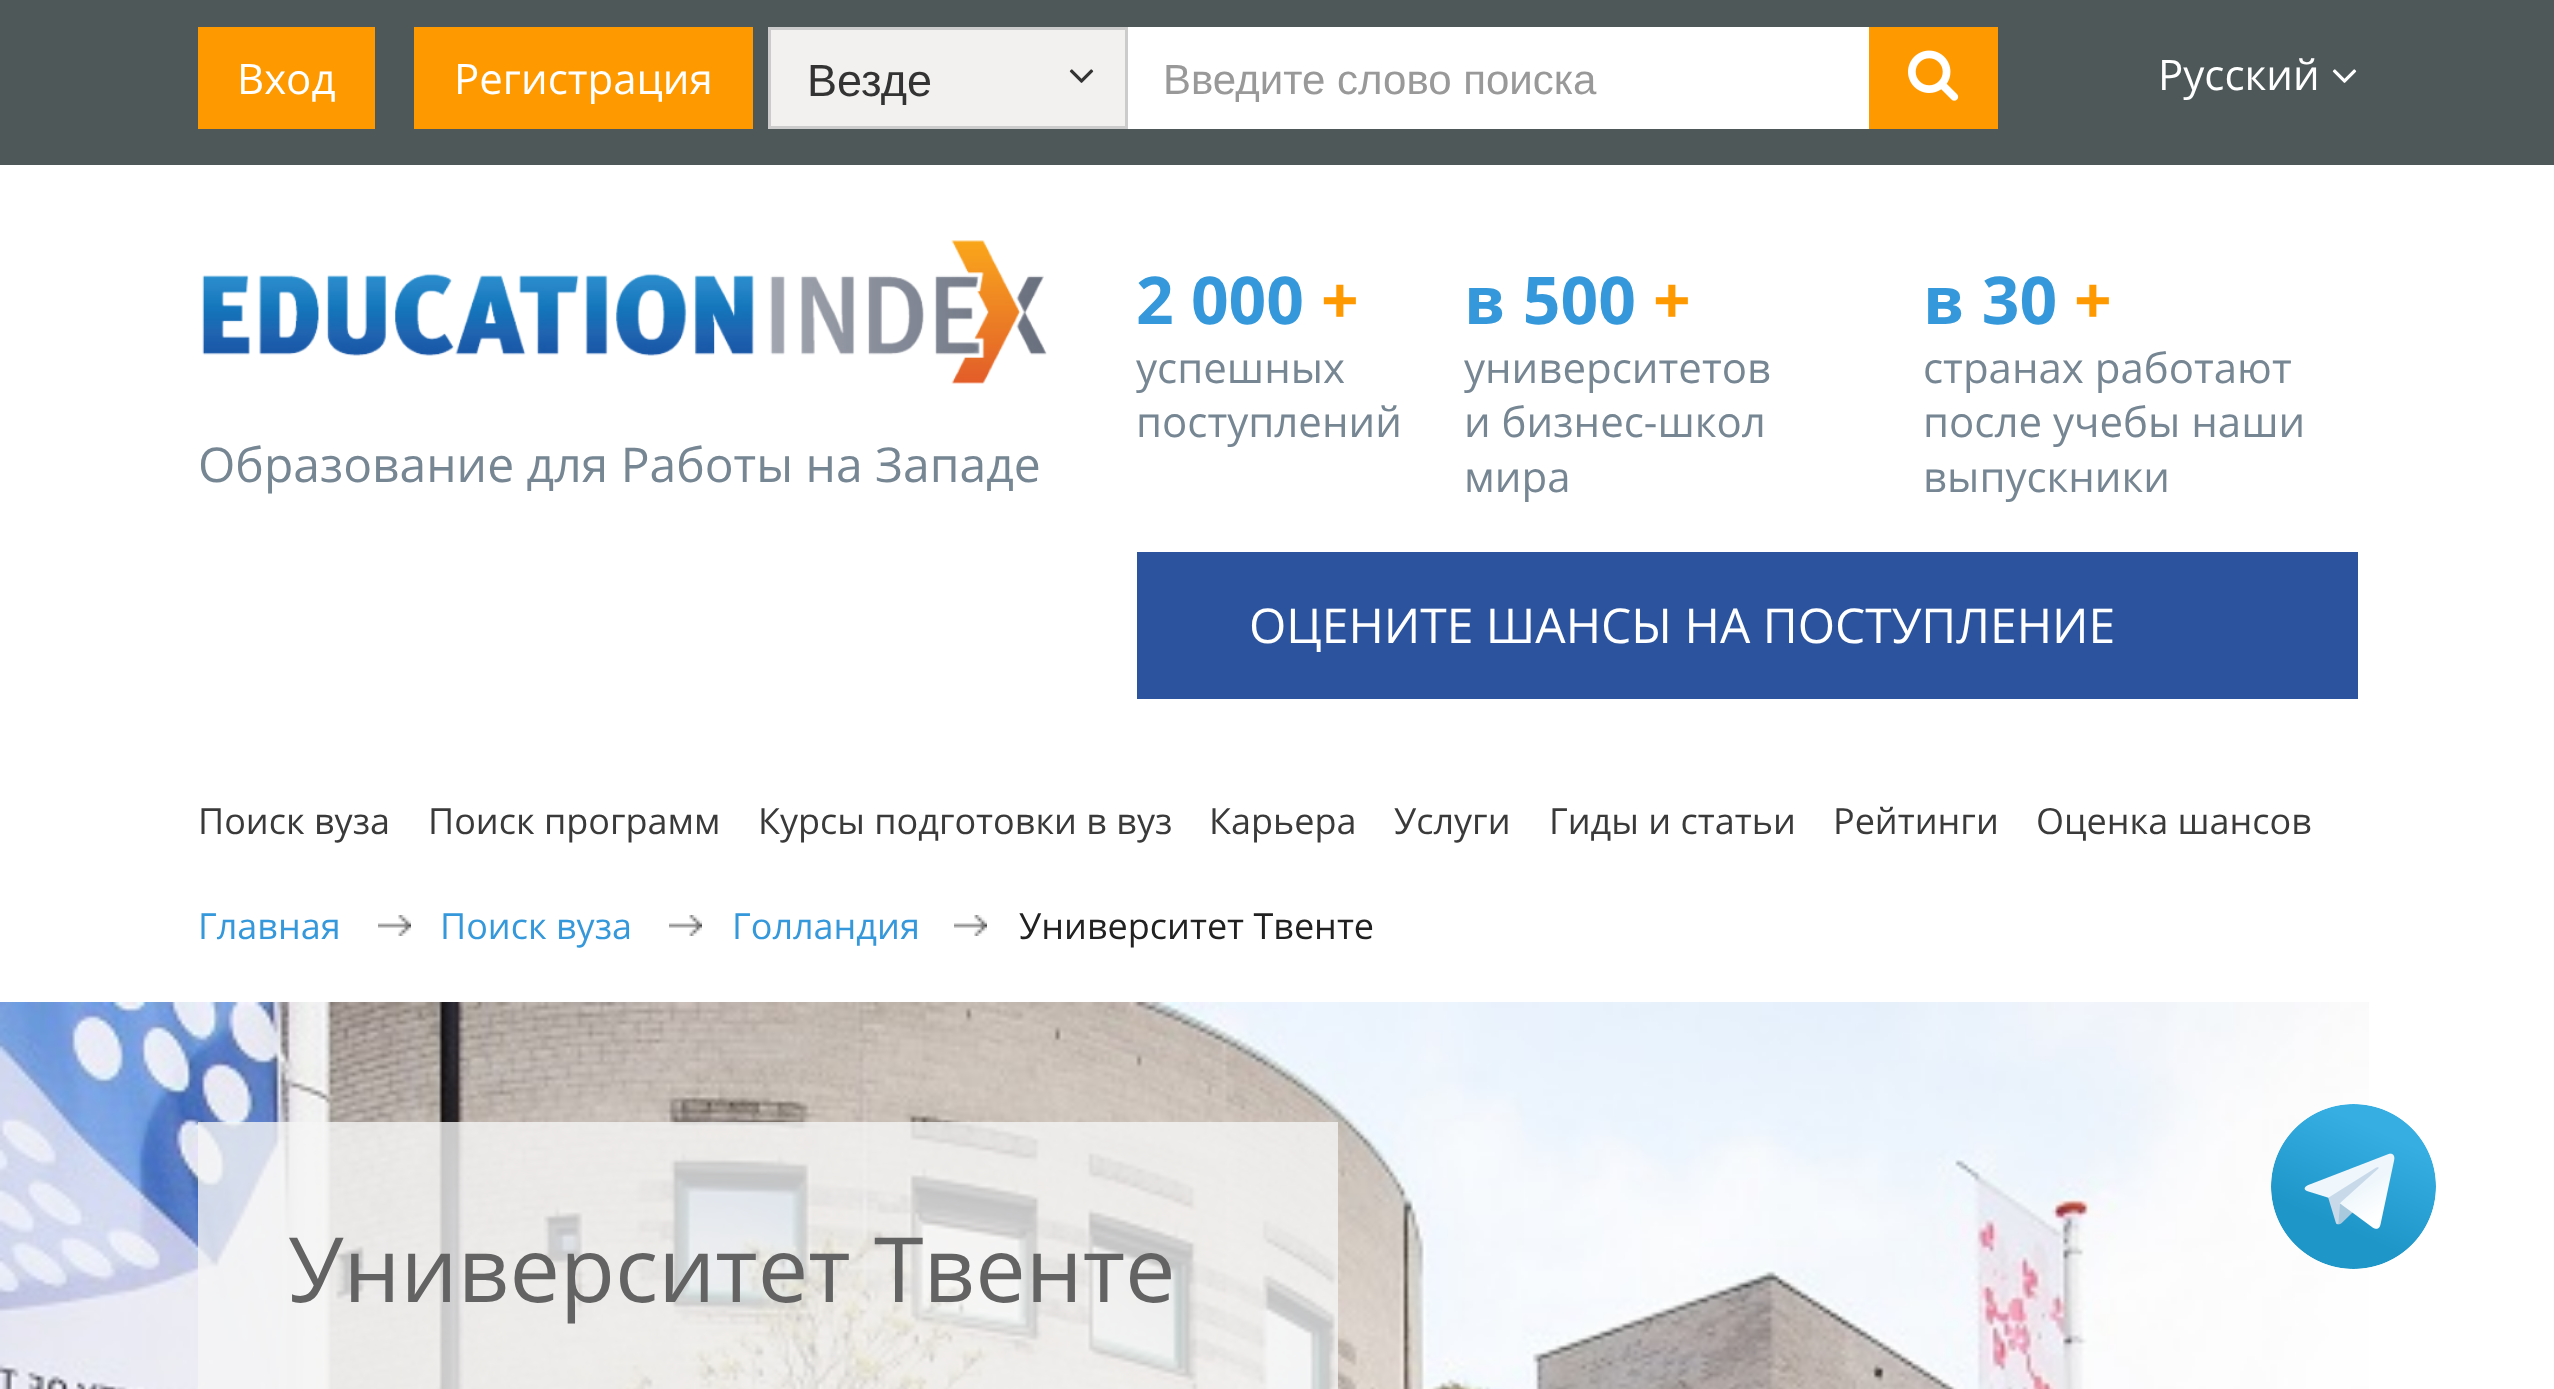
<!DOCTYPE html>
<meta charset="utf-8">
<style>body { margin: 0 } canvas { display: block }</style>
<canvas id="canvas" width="2554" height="1389"></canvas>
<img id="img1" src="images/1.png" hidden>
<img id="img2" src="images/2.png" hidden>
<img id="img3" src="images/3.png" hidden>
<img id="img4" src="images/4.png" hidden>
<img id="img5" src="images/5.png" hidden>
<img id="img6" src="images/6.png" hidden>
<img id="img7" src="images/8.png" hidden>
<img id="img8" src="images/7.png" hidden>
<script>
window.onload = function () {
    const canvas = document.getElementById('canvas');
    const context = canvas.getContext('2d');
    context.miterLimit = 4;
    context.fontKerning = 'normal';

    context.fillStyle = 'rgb(255, 255, 255)';
    context.fillRect(0, 0, 2554, 1389);
    context.fillStyle = 'rgb(78, 88, 89)';
    context.fillRect(0, 0, 2554, 165);
    context.fillStyle = 'rgb(255, 153, 0)';
    context.fillRect(198, 27, 177, 102);
    context.fillRect(414, 27, 339, 102);
    context.fillStyle = 'rgb(242, 241, 239)';
    context.beginPath();
    context.rect(769.5, 28.5, 357, 99);
    context.fill();
    context.strokeStyle = 'rgb(204, 204, 204)';
    context.lineWidth = 3;
    context.stroke();
    context.drawImage(document.getElementById('img1'), 1069, 69, 25, 14);
    context.fillStyle = 'rgb(255, 255, 255)';
    context.fillRect(1128, 27, 741, 102);
    context.fillStyle = 'rgb(255, 153, 0)';
    context.fillRect(1869, 27, 129, 102);
    context.drawImage(document.getElementById('img2'), 1908, 50, 51, 51);
    context.drawImage(document.getElementById('img3'), 2332, 69, 25, 14);
    context.drawImage(document.getElementById('img4'), 202, 240, 845, 144);
    context.fillStyle = 'rgb(44, 83, 158)';
    context.fillRect(1137, 552, 1221, 147);
    context.drawImage(document.getElementById('img5'), 378, 915, 33, 21);
    context.drawImage(document.getElementById('img6'), 669, 915, 33, 21);
    context.drawImage(document.getElementById('img6'), 954, 915, 33, 21);
    context.drawImage(document.getElementById('img7'), 0, 1002, 2369, 387);
    context.drawImage(document.getElementById('img8'), 2271, 1104, 165, 165);
    context.fillStyle = 'rgba(245, 245, 245, 0.8)';
    context.fillRect(198, 1122, 1140, 267);
    context.font = '42px Open Sans';
    context.fillStyle = 'rgb(255, 255, 255)';
    context.fillText('Вход', 237, 94);
    context.fillText('Регистрация', 454, 94);
    context.font = '45px Liberation Sans';
    context.fillStyle = 'rgb(51, 51, 51)';
    context.fillText('Везде', 807, 96);
    context.save();
    context.beginPath();
    context.rect(1164, 54, 672, 48);
    context.clip();
    context.font = '42px Liberation Sans';
    context.fillStyle = 'rgb(153, 153, 153)';
    context.fillText('Введите слово поиска', 1163, 94);
    context.restore();
    context.font = '42px Open Sans';
    context.fillStyle = 'rgb(255, 255, 255)';
    context.fillText('Русский', 2158, 90);
    context.font = '48px Open Sans';
    context.fillStyle = 'rgb(118, 134, 147)';
    context.fillText('Образование для Работы на Западе', 198, 482);
    context.font = 'bold 66px Open Sans';
    context.fillStyle = 'rgb(52, 152, 219)';
    context.fillText('2 000', 1136, 324);
    context.fillStyle = 'rgb(255, 153, 0)';
    context.fillText('+', 1321, 324);
    context.font = '42px Open Sans';
    context.fillStyle = 'rgb(118, 134, 147)';
    context.fillText('успешных', 1136, 383);
    context.fillText('поступлений', 1136, 437);
    context.font = 'bold 66px Open Sans';
    context.fillStyle = 'rgb(52, 152, 219)';
    context.fillText('в 500', 1464, 324);
    context.fillStyle = 'rgb(255, 153, 0)';
    context.fillText('+', 1653, 324);
    context.font = '42px Open Sans';
    context.fillStyle = 'rgb(118, 134, 147)';
    context.fillText('университетов', 1464, 383);
    context.fillText('и бизнес-школ', 1464, 437);
    context.fillText('мира', 1464, 492);
    context.font = 'bold 66px Open Sans';
    context.fillStyle = 'rgb(52, 152, 219)';
    context.fillText('в 30', 1923, 324);
    context.fillStyle = 'rgb(255, 153, 0)';
    context.fillText('+', 2074, 324);
    context.font = '42px Open Sans';
    context.fillStyle = 'rgb(118, 134, 147)';
    context.fillText('странах работают', 1923, 383);
    context.fillText('после учебы наши', 1923, 437);
    context.fillText('выпускники', 1923, 492);
    context.font = '48px Open Sans';
    context.fillStyle = 'rgb(255, 255, 255)';
    context.fillText('ОЦЕНИТЕ ШАНСЫ НА ПОСТУПЛЕНИЕ', 1249, 643);
    context.font = '36px Open Sans';
    context.fillStyle = 'rgb(58, 58, 58)';
    context.fillText('Поиск вуза', 198, 834);
    context.fillText('Поиск программ', 428, 834);
    context.fillText('Курсы подготовки в вуз', 758, 834);
    context.fillText('Карьера', 1209, 834);
    context.fillText('Услуги', 1394, 834);
    context.fillText('Гиды и статьи', 1549, 834);
    context.fillText('Рейтинги', 1833, 834);
    context.fillText('Оценка шансов', 2036, 834);
    context.fillStyle = 'rgb(52, 152, 219)';
    context.fillText('Главная', 198, 939);
    context.fillText('Поиск вуза', 440, 939);
    context.fillText('Голландия', 732, 939);
    context.fillStyle = 'rgb(33, 33, 33)';
    context.fillText('Университет Твенте', 1019, 939);
    context.font = '90px Open Sans';
    context.fillStyle = 'rgb(99, 99, 99)';
    context.fillText('Университет Твенте', 288, 1302);
};
</script>
